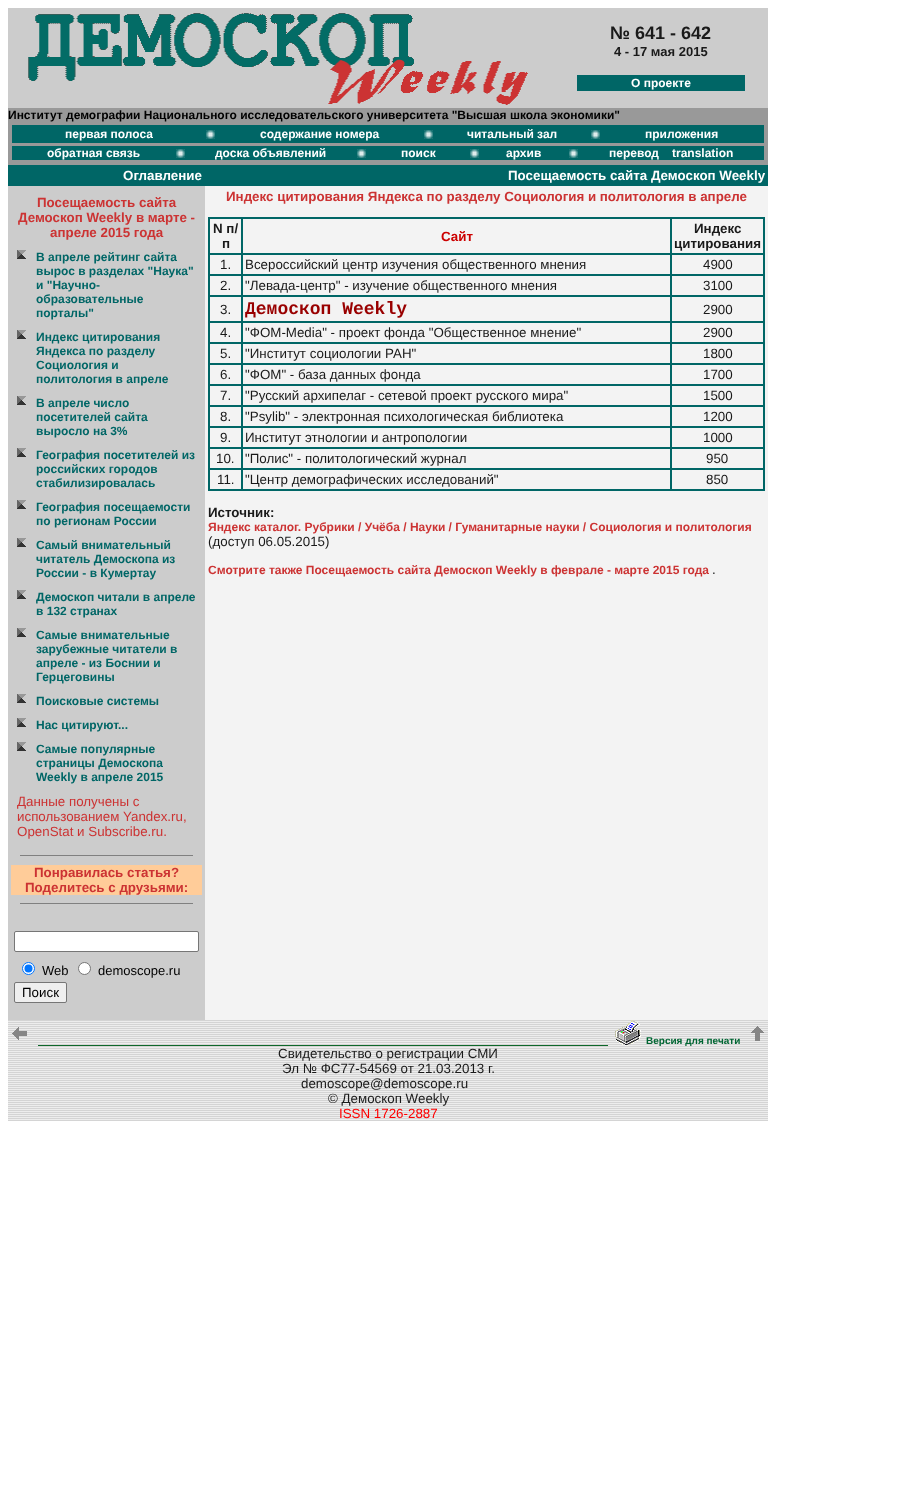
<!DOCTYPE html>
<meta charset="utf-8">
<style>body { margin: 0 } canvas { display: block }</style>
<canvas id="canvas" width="906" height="1488"></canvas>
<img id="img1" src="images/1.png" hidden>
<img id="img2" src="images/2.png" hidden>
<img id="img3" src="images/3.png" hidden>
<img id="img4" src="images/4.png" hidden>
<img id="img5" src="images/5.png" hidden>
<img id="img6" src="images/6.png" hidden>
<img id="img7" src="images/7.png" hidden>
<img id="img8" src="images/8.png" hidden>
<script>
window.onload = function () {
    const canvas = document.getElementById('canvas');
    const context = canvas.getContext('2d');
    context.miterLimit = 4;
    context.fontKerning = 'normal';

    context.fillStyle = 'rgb(255, 255, 255)';
    context.fillRect(0, 0, 906, 1488);
    context.fillStyle = 'rgb(204, 204, 204)';
    context.fillRect(8, 8, 760, 100);
    context.drawImage(document.getElementById('img1'), 28, 13, 500, 92);
    context.fillStyle = 'rgb(0, 102, 102)';
    context.fillRect(577, 75, 168, 16);
    context.fillStyle = 'rgb(153, 153, 153)';
    context.fillRect(8, 108, 760, 57);
    context.fillStyle = 'rgb(0, 102, 102)';
    context.fillRect(12, 125, 752, 18);
    context.drawImage(document.getElementById('img2'), 206, 130, 9, 9);
    context.drawImage(document.getElementById('img2'), 424, 130, 9, 9);
    context.drawImage(document.getElementById('img2'), 591, 130, 9, 9);
    context.fillRect(12, 146, 752, 14);
    context.drawImage(document.getElementById('img2'), 176, 149, 9, 9);
    context.drawImage(document.getElementById('img2'), 357, 149, 9, 9);
    context.drawImage(document.getElementById('img2'), 470, 149, 9, 9);
    context.drawImage(document.getElementById('img2'), 569, 149, 9, 9);
    context.fillStyle = 'rgb(243, 243, 243)';
    context.fillRect(205, 186, 563, 834);
    context.fillStyle = 'rgb(0, 102, 102)';
    context.fillRect(8, 165, 760, 21);
    context.fillStyle = 'rgb(204, 204, 204)';
    context.fillRect(8, 186, 197, 834);
    context.drawImage(document.getElementById('img3'), 17, 250, 9, 9);
    context.drawImage(document.getElementById('img3'), 17, 330, 9, 9);
    context.drawImage(document.getElementById('img3'), 17, 396, 9, 9);
    context.drawImage(document.getElementById('img3'), 17, 448, 9, 9);
    context.drawImage(document.getElementById('img3'), 17, 500, 9, 9);
    context.drawImage(document.getElementById('img3'), 17, 538, 9, 9);
    context.drawImage(document.getElementById('img3'), 17, 590, 9, 9);
    context.drawImage(document.getElementById('img3'), 17, 628, 9, 9);
    context.drawImage(document.getElementById('img3'), 17, 694, 9, 9);
    context.drawImage(document.getElementById('img3'), 17, 718, 9, 9);
    context.drawImage(document.getElementById('img3'), 17, 742, 9, 9);
    context.fillStyle = 'rgb(128, 128, 128)';
    context.fillRect(20, 855, 173, 1);
    context.fillStyle = 'rgb(255, 204, 153)';
    context.fillRect(11, 865, 191, 30);
    context.fillStyle = 'rgb(128, 128, 128)';
    context.fillRect(20, 903, 173, 1);
    context.fillStyle = 'rgb(255, 255, 255)';
    context.beginPath();
    context.roundRect(14.5, 931.5, 184, 20, 1.5);
    context.fill();
    context.strokeStyle = 'rgb(118, 118, 118)';
    context.stroke();
    context.beginPath();
    context.arc(28.5, 968.5, 6, 0, 2 * Math.PI);
    context.fill();
    context.strokeStyle = 'rgb(0, 117, 255)';
    context.stroke();
    context.fillStyle = 'rgb(0, 117, 255)';
    context.beginPath();
    context.arc(28.5, 968.5, 4, 0, 2 * Math.PI);
    context.fill();
    context.fillStyle = 'rgb(255, 255, 255)';
    context.beginPath();
    context.arc(84.5, 968.5, 6, 0, 2 * Math.PI);
    context.fill();
    context.strokeStyle = 'rgb(118, 118, 118)';
    context.stroke();
    context.fillStyle = 'rgb(239, 239, 239)';
    context.beginPath();
    context.roundRect(14.5, 982.5, 52, 20, 1.5);
    context.fill();
    context.stroke();
    context.strokeStyle = 'rgb(0, 102, 102)';
    context.strokeRect(208.5, 217.5, 556, 273);
    context.strokeRect(209.5, 218.5, 32, 35);
    context.strokeRect(242.5, 218.5, 428, 35);
    context.strokeRect(671.5, 218.5, 92, 35);
    context.strokeRect(209.5, 254.5, 32, 20);
    context.strokeRect(242.5, 254.5, 428, 20);
    context.strokeRect(671.5, 254.5, 92, 20);
    context.strokeRect(209.5, 275.5, 32, 20);
    context.strokeRect(242.5, 275.5, 428, 20);
    context.strokeRect(671.5, 275.5, 92, 20);
    context.strokeRect(209.5, 296.5, 32, 25);
    context.strokeRect(242.5, 296.5, 428, 25);
    context.strokeRect(671.5, 296.5, 92, 25);
    context.strokeRect(209.5, 322.5, 32, 20);
    context.strokeRect(242.5, 322.5, 428, 20);
    context.strokeRect(671.5, 322.5, 92, 20);
    context.strokeRect(209.5, 343.5, 32, 20);
    context.strokeRect(242.5, 343.5, 428, 20);
    context.strokeRect(671.5, 343.5, 92, 20);
    context.strokeRect(209.5, 364.5, 32, 20);
    context.strokeRect(242.5, 364.5, 428, 20);
    context.strokeRect(671.5, 364.5, 92, 20);
    context.strokeRect(209.5, 385.5, 32, 20);
    context.strokeRect(242.5, 385.5, 428, 20);
    context.strokeRect(671.5, 385.5, 92, 20);
    context.strokeRect(209.5, 406.5, 32, 20);
    context.strokeRect(242.5, 406.5, 428, 20);
    context.strokeRect(671.5, 406.5, 92, 20);
    context.strokeRect(209.5, 427.5, 32, 20);
    context.strokeRect(242.5, 427.5, 428, 20);
    context.strokeRect(671.5, 427.5, 92, 20);
    context.strokeRect(209.5, 448.5, 32, 20);
    context.strokeRect(242.5, 448.5, 428, 20);
    context.strokeRect(671.5, 448.5, 92, 20);
    context.strokeRect(209.5, 469.5, 32, 20);
    context.strokeRect(242.5, 469.5, 428, 20);
    context.strokeRect(671.5, 469.5, 92, 20);
    context.drawImage(document.getElementById('img4'), 8, 1020, 760, 26);
    context.drawImage(document.getElementById('img5'), 12, 1027, 15, 13);
    context.drawImage(document.getElementById('img6'), 615, 1020, 26, 26);
    context.drawImage(document.getElementById('img7'), 751, 1026, 13, 15);
    context.fillStyle = 'rgb(13, 103, 41)';
    context.fillRect(38, 1045, 570, 1);
    context.drawImage(document.getElementById('img8'), 8, 1046, 760, 75);
    context.font = 'bold 18px Liberation Sans';
    context.fillStyle = 'rgb(26, 26, 26)';
    context.fillText('№ 641 - 642', 610, 39);
    context.font = 'bold 13px Liberation Sans';
    context.fillText('4 - 17 мая 2015', 614, 56);
    context.font = 'bold 12px Liberation Sans';
    context.fillStyle = 'rgb(255, 255, 255)';
    context.fillText('О проекте', 631, 87);
    context.fillStyle = 'rgb(0, 0, 0)';
    context.fillText('Институт демографии Национального исследовательского университета "Высшая школа экономики"', 8, 119);
    context.fillStyle = 'rgb(255, 255, 255)';
    context.fillText('первая полоса', 65, 138);
    context.fillText('содержание номера', 260, 138);
    context.fillText('читальный зал', 467, 138);
    context.fillText('приложения', 645, 138);
    context.fillText('обратная связь', 47, 157);
    context.fillText('доска объявлений', 215, 157);
    context.fillText('поиск', 401, 157);
    context.fillText('архив', 506, 157);
    context.fillText('перевод', 609, 157);
    context.fillText('translation', 672, 157);
    context.font = 'bold 13.35px Liberation Sans';
    context.fillText('Оглавление', 123, 180);
    context.fillText('Посещаемость сайта Демоскоп Weekly', 508, 180);
    context.fillStyle = 'rgb(204, 51, 51)';
    context.fillText('Посещаемость сайта', 37, 207);
    context.fillText('Демоскоп Weekly в марте -', 18, 222);
    context.fillText('апреле 2015 года', 50, 237);
    context.font = 'bold 12px Liberation Sans';
    context.fillStyle = 'rgb(0, 102, 102)';
    context.fillText('В апреле рейтинг сайта', 36, 261);
    context.fillText('вырос в разделах "Наука"', 36, 275);
    context.fillText('и "Научно-', 36, 289);
    context.fillText('образовательные', 36, 303);
    context.fillText('порталы"', 36, 317);
    context.fillText('Индекс цитирования', 36, 341);
    context.fillText('Яндекса по разделу', 36, 355);
    context.fillText('Социология и', 36, 369);
    context.fillText('политология в апреле', 36, 383);
    context.fillText('В апреле число', 36, 407);
    context.fillText('посетителей сайта', 36, 421);
    context.fillText('выросло на 3%', 36, 435);
    context.fillText('География посетителей из', 36, 459);
    context.fillText('российских городов', 36, 473);
    context.fillText('стабилизировалась', 36, 487);
    context.fillText('География посещаемости', 36, 511);
    context.fillText('по регионам России', 36, 525);
    context.fillText('Cамый внимательный', 36, 549);
    context.fillText('читатель Демоскопа из', 36, 563);
    context.fillText('России - в Кумертау', 36, 577);
    context.fillText('Демоскоп читали в апреле', 36, 601);
    context.fillText('в 132 странах', 36, 615);
    context.fillText('Самые внимательные', 36, 639);
    context.fillText('зарубежные читатели в', 36, 653);
    context.fillText('апреле - из Боснии и', 36, 667);
    context.fillText('Герцеговины', 36, 681);
    context.fillText('Поисковые системы', 36, 705);
    context.fillText('Нас цитируют...', 36, 729);
    context.fillText('Самые популярные', 36, 753);
    context.fillText('страницы Демоскопа', 36, 767);
    context.fillText('Weekly в апреле 2015', 36, 781);
    context.font = '13.35px Liberation Sans';
    context.fillStyle = 'rgb(204, 51, 51)';
    context.fillText('Данные получены с', 17, 806);
    context.fillText('использованием Yandex.ru,', 17, 821);
    context.fillText('OpenStat и Subscribe.ru.', 17, 836);
    context.font = 'bold 13.35px Liberation Sans';
    context.fillText('Понравилась статья?', 34, 877);
    context.fillText('Поделитесь с друзьями:', 25, 892);
    context.font = '13px Liberation Sans';
    context.fillStyle = 'rgb(0, 0, 0)';
    context.fillText('Web', 42, 975);
    context.fillText('demoscope.ru', 98, 975);
    context.font = '13.35px Liberation Sans';
    context.fillText('Поиск', 22, 997);
    context.font = 'bold 13.35px Liberation Sans';
    context.fillStyle = 'rgb(204, 51, 51)';
    context.fillText('Индекс цитирования Яндекса по разделу Социология и политология в апреле', 226, 201);
    context.fillStyle = 'rgb(26, 26, 26)';
    context.fillText('N п/', 213, 233);
    context.fillText('п', 222, 248);
    context.fillStyle = 'rgb(204, 0, 0)';
    context.fillText('Сайт', 441, 241);
    context.fillStyle = 'rgb(26, 26, 26)';
    context.fillText('Индекс', 694, 233);
    context.fillText('цитирования', 674, 248);
    context.font = '13.35px Liberation Sans';
    context.fillText('1.', 220, 269);
    context.fillText('Всероссийский центр изучения общественного мнения', 245, 269);
    context.fillText('4900', 703, 269);
    context.fillText('2.', 220, 290);
    context.fillText('"Левада-центр" - изучение общественного мнения', 245, 290);
    context.fillText('3100', 703, 290);
    context.fillText('3.', 220, 314);
    context.font = 'bold 18px Liberation Mono';
    context.fillStyle = 'rgb(153, 0, 0)';
    context.fillText('Демоскоп Weekly', 245, 314);
    context.font = '13.35px Liberation Sans';
    context.fillStyle = 'rgb(26, 26, 26)';
    context.fillText('2900', 703, 314);
    context.fillText('4.', 220, 337);
    context.fillText('"ФОМ-Media" - проект фонда "Общественное мнение"', 245, 337);
    context.fillText('2900', 703, 337);
    context.fillText('5.', 220, 358);
    context.fillText('"Институт социологии РАН"', 245, 358);
    context.fillText('1800', 703, 358);
    context.fillText('6.', 220, 379);
    context.fillText('"ФОМ" - база данных фонда', 245, 379);
    context.fillText('1700', 703, 379);
    context.fillText('7.', 220, 400);
    context.fillText('"Русский архипелаг - сетевой проект русского мира"', 245, 400);
    context.fillText('1500', 703, 400);
    context.fillText('8.', 220, 421);
    context.fillText('"Psylib" - электронная психологическая библиотека', 245, 421);
    context.fillText('1200', 703, 421);
    context.fillText('9.', 220, 442);
    context.fillText('Институт этнологии и антропологии', 245, 442);
    context.fillText('1000', 703, 442);
    context.fillText('10.', 216, 463);
    context.fillText('"Полис" - политологический журнал', 245, 463);
    context.fillText('950', 706, 463);
    context.fillText('11.', 217, 484);
    context.fillText('"Центр демографических исследований"', 245, 484);
    context.fillText('850', 706, 484);
    context.font = 'bold 13.35px Liberation Sans';
    context.fillText('Источник:', 208, 517);
    context.font = 'bold 12px Liberation Sans';
    context.fillStyle = 'rgb(204, 51, 51)';
    context.fillText('Яндекс каталог. Рубрики / Учёба / Науки / Гуманитарные науки / Социология и политология', 208, 531);
    context.font = '13.35px Liberation Sans';
    context.fillStyle = 'rgb(26, 26, 26)';
    context.fillText('(доступ 06.05.2015)', 208, 546);
    context.font = 'bold 12px Liberation Sans';
    context.fillStyle = 'rgb(204, 51, 51)';
    context.fillText('Смотрите также Посещаемость сайта Демоскоп Weekly в феврале - марте 2015 года', 208, 574);
    context.font = '13.35px Liberation Sans';
    context.fillStyle = 'rgb(26, 26, 26)';
    context.fillText('.', 712, 574);
    context.font = 'bold 10px Liberation Sans';
    context.fillStyle = 'rgb(0, 102, 51)';
    context.fillText('Версия для печати', 646, 1044);
    context.font = '13.35px Liberation Sans';
    context.fillStyle = 'rgb(26, 26, 26)';
    context.fillText('Свидетельство о регистрации СМИ', 278, 1058);
    context.fillText('Эл № ФС77-54569 от 21.03.2013 г.', 282, 1073);
    context.fillText('demoscope@demoscope.ru', 301, 1088);
    context.fillText('© Демоскоп Weekly', 328, 1103);
    context.fillStyle = 'rgb(255, 0, 0)';
    context.fillText('ISSN 1726-2887', 339, 1118);
};
</script>
